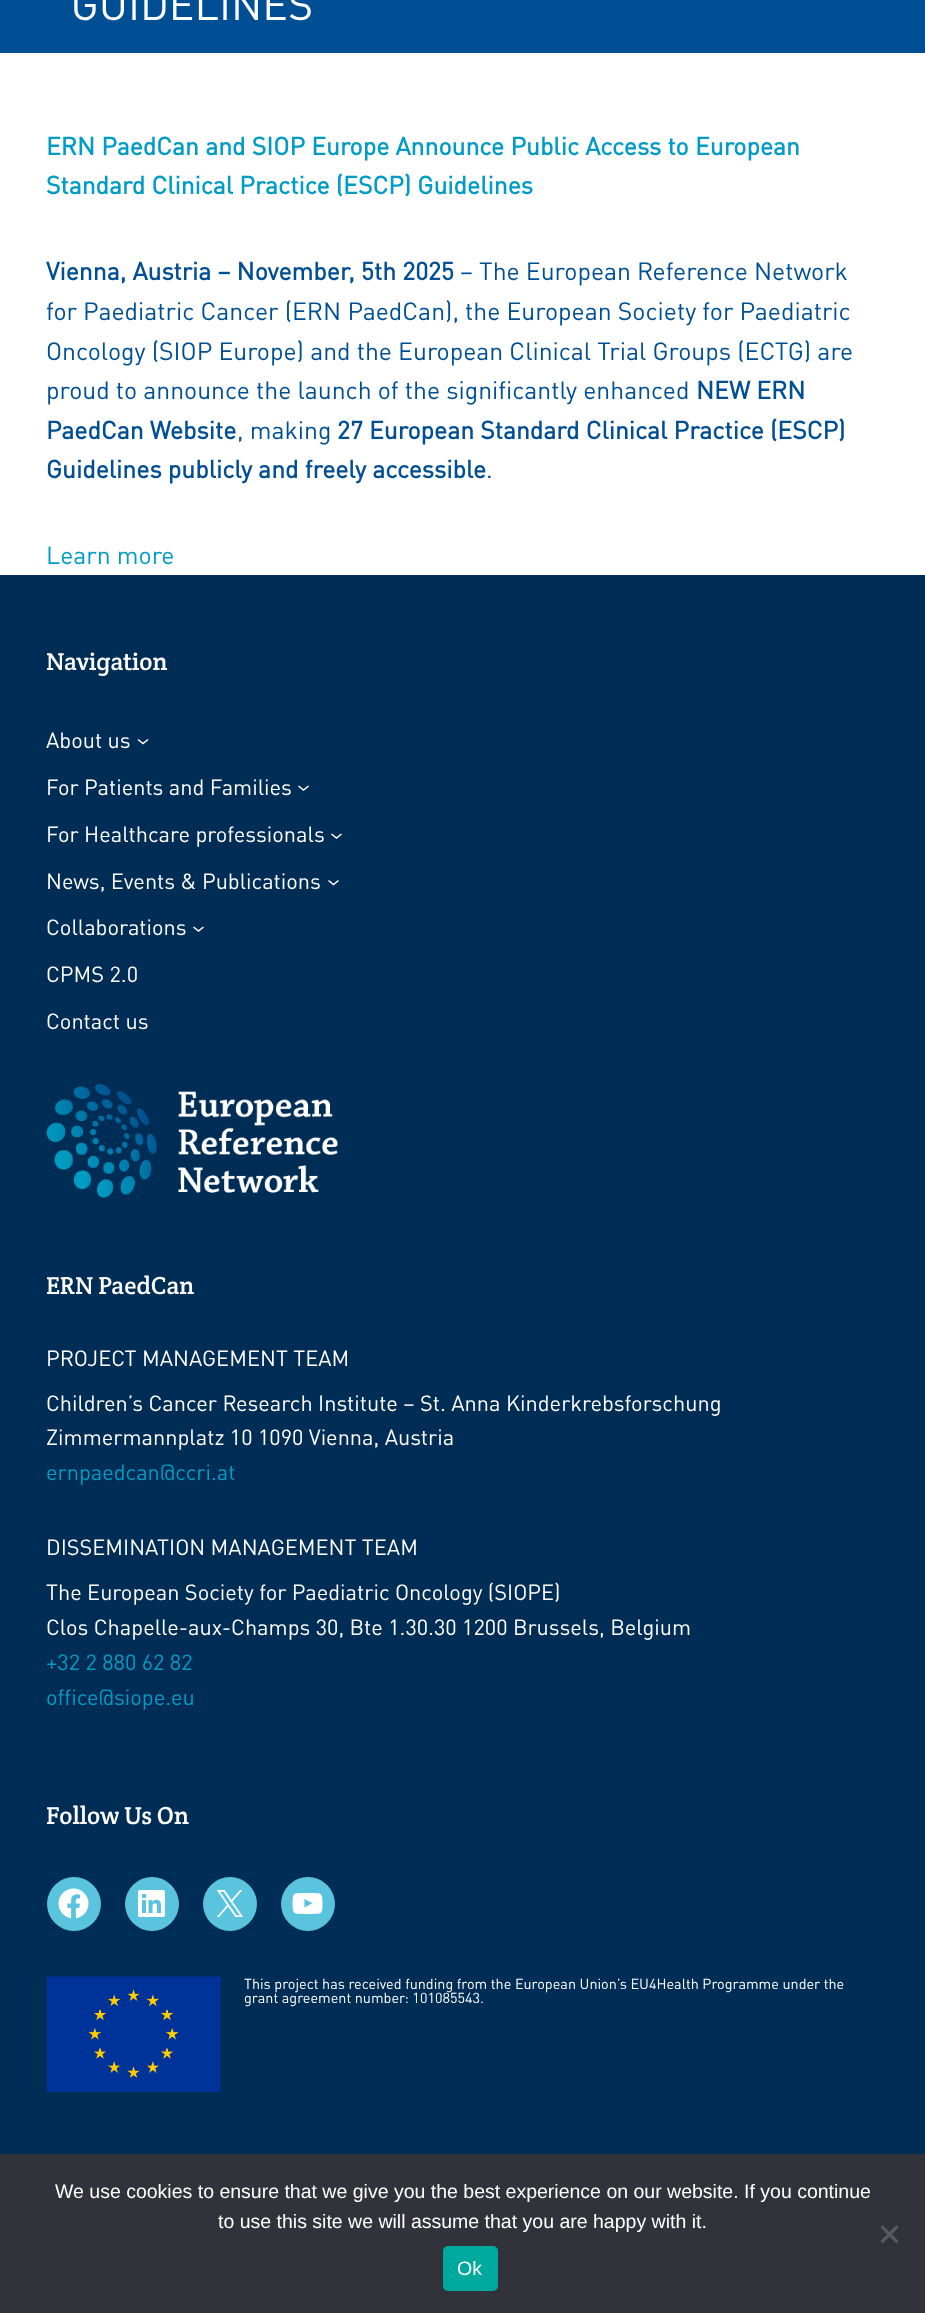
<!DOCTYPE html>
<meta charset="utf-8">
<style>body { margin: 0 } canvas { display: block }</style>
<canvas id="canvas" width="925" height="2313"></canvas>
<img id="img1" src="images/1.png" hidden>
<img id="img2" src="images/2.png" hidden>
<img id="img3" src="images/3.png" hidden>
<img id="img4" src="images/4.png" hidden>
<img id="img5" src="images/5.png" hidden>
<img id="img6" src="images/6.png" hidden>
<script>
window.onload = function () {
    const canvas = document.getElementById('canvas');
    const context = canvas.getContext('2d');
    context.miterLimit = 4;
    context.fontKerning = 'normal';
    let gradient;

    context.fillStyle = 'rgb(255, 255, 255)';
    context.fillRect(0, 0, 925, 2313);
    gradient = context.createLinearGradient(463, 53, 463, -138);
    gradient.addColorStop(0.9, 'rgb(0, 79, 148)');
    gradient.addColorStop(1, 'rgb(0, 57, 104)');
    context.fillStyle = gradient;
    context.fillRect(0, 0, 925, 53);
    context.fillStyle = 'rgb(0, 45, 85)';
    context.fillRect(0, 575, 925, 1579);
    context.beginPath();
    context.moveTo(138, 739.5);
    context.lineTo(143, 743.5);
    context.lineTo(148, 739.5);
    context.strokeStyle = 'rgb(255, 255, 255)';
    context.lineWidth = 1.6;
    context.stroke();
    context.beginPath();
    context.moveTo(298.5, 786);
    context.lineTo(303.5, 790);
    context.lineTo(308.5, 786);
    context.moveTo(331.5, 834);
    context.lineTo(336.5, 838);
    context.lineTo(341.5, 834);
    context.stroke();
    context.beginPath();
    context.moveTo(328.5, 880.5);
    context.lineTo(333.5, 884.5);
    context.lineTo(338.5, 880.5);
    context.stroke();
    context.beginPath();
    context.moveTo(193.5, 927);
    context.lineTo(198.5, 931);
    context.lineTo(203.5, 927);
    context.stroke();
    context.drawImage(document.getElementById('img1'), 46, 1084, 292, 114);
    context.fillStyle = 'rgb(90, 195, 222)';
    context.beginPath();
    context.arc(74, 1904, 27, 0, 2 * Math.PI);
    context.fill();
    context.drawImage(document.getElementById('img2'), 58, 1888, 31, 31);
    context.beginPath();
    context.arc(152, 1904, 27, 0, 2 * Math.PI);
    context.fill();
    context.drawImage(document.getElementById('img3'), 138, 1890, 27, 27);
    context.beginPath();
    context.arc(230, 1904, 27, 0, 2 * Math.PI);
    context.fill();
    context.drawImage(document.getElementById('img4'), 216, 1890, 27, 27);
    context.beginPath();
    context.arc(308, 1904, 27, 0, 2 * Math.PI);
    context.fill();
    context.drawImage(document.getElementById('img5'), 292, 1892, 31, 23);
    context.drawImage(document.getElementById('img6'), 46, 1976, 175, 116);
    context.fillStyle = 'rgb(50, 50, 58)';
    context.fillRect(0, 2154, 925, 159);
    context.fillStyle = 'rgb(89, 89, 93)';
    context.beginPath();
    context.moveTo(896.5, 2225);
    context.lineTo(898.5, 2227.5);
    context.lineTo(882.5, 2243.5);
    context.lineTo(880.5, 2241);
    context.closePath();
    context.fill();
    context.beginPath();
    context.moveTo(880.5, 2227.5);
    context.lineTo(882.5, 2225);
    context.lineTo(898.5, 2241);
    context.lineTo(896.5, 2243.5);
    context.closePath();
    context.fill();
    context.fillStyle = 'rgb(0, 169, 157)';
    context.beginPath();
    context.roundRect(443, 2246, 55, 45, 5);
    context.fill();
    context.font = '42.75px DIN';
    context.fillStyle = 'rgb(255, 255, 255)';
    context.fillText('GUIDELINES', 71, 20);
    context.font = 'bold 24.75px DIN';
    context.fillStyle = 'rgb(0, 156, 197)';
    context.fillText('ERN PaedCan and SIOP Europe Announce Public Access to European', 46, 155);
    context.fillText('Standard Clinical Practice (ESCP) Guidelines', 46, 194);
    context.fillStyle = 'rgb(0, 79, 148)';
    context.fillText('Vienna, Austria – November, 5th 2025', 46, 280);
    context.font = '24.75px DIN';
    context.fillText('– The European Reference Network', 460, 280);
    context.fillText('for Paediatric Cancer (ERN PaedCan), the European Society for Paediatric', 46, 320);
    context.fillText('Oncology (SIOP Europe) and the European Clinical Trial Groups (ECTG) are', 46, 360);
    context.fillText('proud to announce the launch of the significantly enhanced', 46, 399);
    context.font = 'bold 24.75px DIN';
    context.fillText('NEW ERN', 696, 399);
    context.fillText('PaedCan Website', 46, 439);
    context.font = '24.75px DIN';
    context.fillText(', making', 237, 439);
    context.font = 'bold 24.75px DIN';
    context.fillText('27 European Standard Clinical Practice (ESCP)', 337, 439);
    context.fillText('Guidelines publicly and freely accessible', 46, 478);
    context.font = '24.75px DIN';
    context.fillText('.', 486, 478);
    context.fillStyle = 'rgb(0, 156, 197)';
    context.fillText('Learn more', 46, 564);
    context.font = '24.75px Crete Round';
    context.fillStyle = 'rgb(255, 255, 255)';
    context.fillText('Navigation', 46, 670);
    context.font = '21.75px DIN';
    context.fillText('About us', 46, 748);
    context.fillText('For Patients and Families', 46, 795);
    context.fillText('For Healthcare professionals', 46, 842);
    context.fillText('News, Events & Publications', 46, 889);
    context.fillText('Collaborations', 46, 935);
    context.fillText('CPMS 2.0', 46, 982);
    context.fillText('Contact us', 46, 1029);
    context.font = '24.75px Crete Round';
    context.fillText('ERN PaedCan', 46, 1294);
    context.font = '21.75px DIN';
    context.fillText('PROJECT MANAGEMENT TEAM', 46, 1366);
    context.fillText('Children’s Cancer Research Institute – St. Anna Kinderkrebsforschung', 46, 1411);
    context.fillText('Zimmermannplatz 10 1090 Vienna, Austria', 46, 1445);
    context.fillStyle = 'rgb(0, 156, 197)';
    context.fillText('ernpaedcan@ccri.at', 46, 1480);
    context.fillStyle = 'rgb(255, 255, 255)';
    context.fillText('DISSEMINATION MANAGEMENT TEAM', 46, 1555);
    context.fillText('The European Society for Paediatric Oncology (SIOPE)', 46, 1600);
    context.fillText('Clos Chapelle-aux-Champs 30, Bte 1.30.30 1200 Brussels, Belgium', 46, 1635);
    context.fillStyle = 'rgb(0, 156, 197)';
    context.fillText('+32 2 880 62 82', 46, 1670);
    context.fillText('office@siope.eu', 46, 1705);
    context.font = '24.75px Crete Round';
    context.fillStyle = 'rgb(255, 255, 255)';
    context.fillText('Follow Us On', 46, 1824);
    context.font = '14.4px DIN';
    context.fillText('This project has received funding from the European Union’s EU4Health Programme under the', 244, 1989);
    context.fillText('grant agreement number: 101085543.', 244, 2003);
    context.font = '19.5px Liberation Sans';
    context.fillText('We use cookies to ensure that we give you the best experience on our website. If you continue', 55, 2198);
    context.fillText('to use this site we will assume that you are happy with it.', 218, 2228);
    context.fillText('Ok', 457, 2275);
};
</script>
